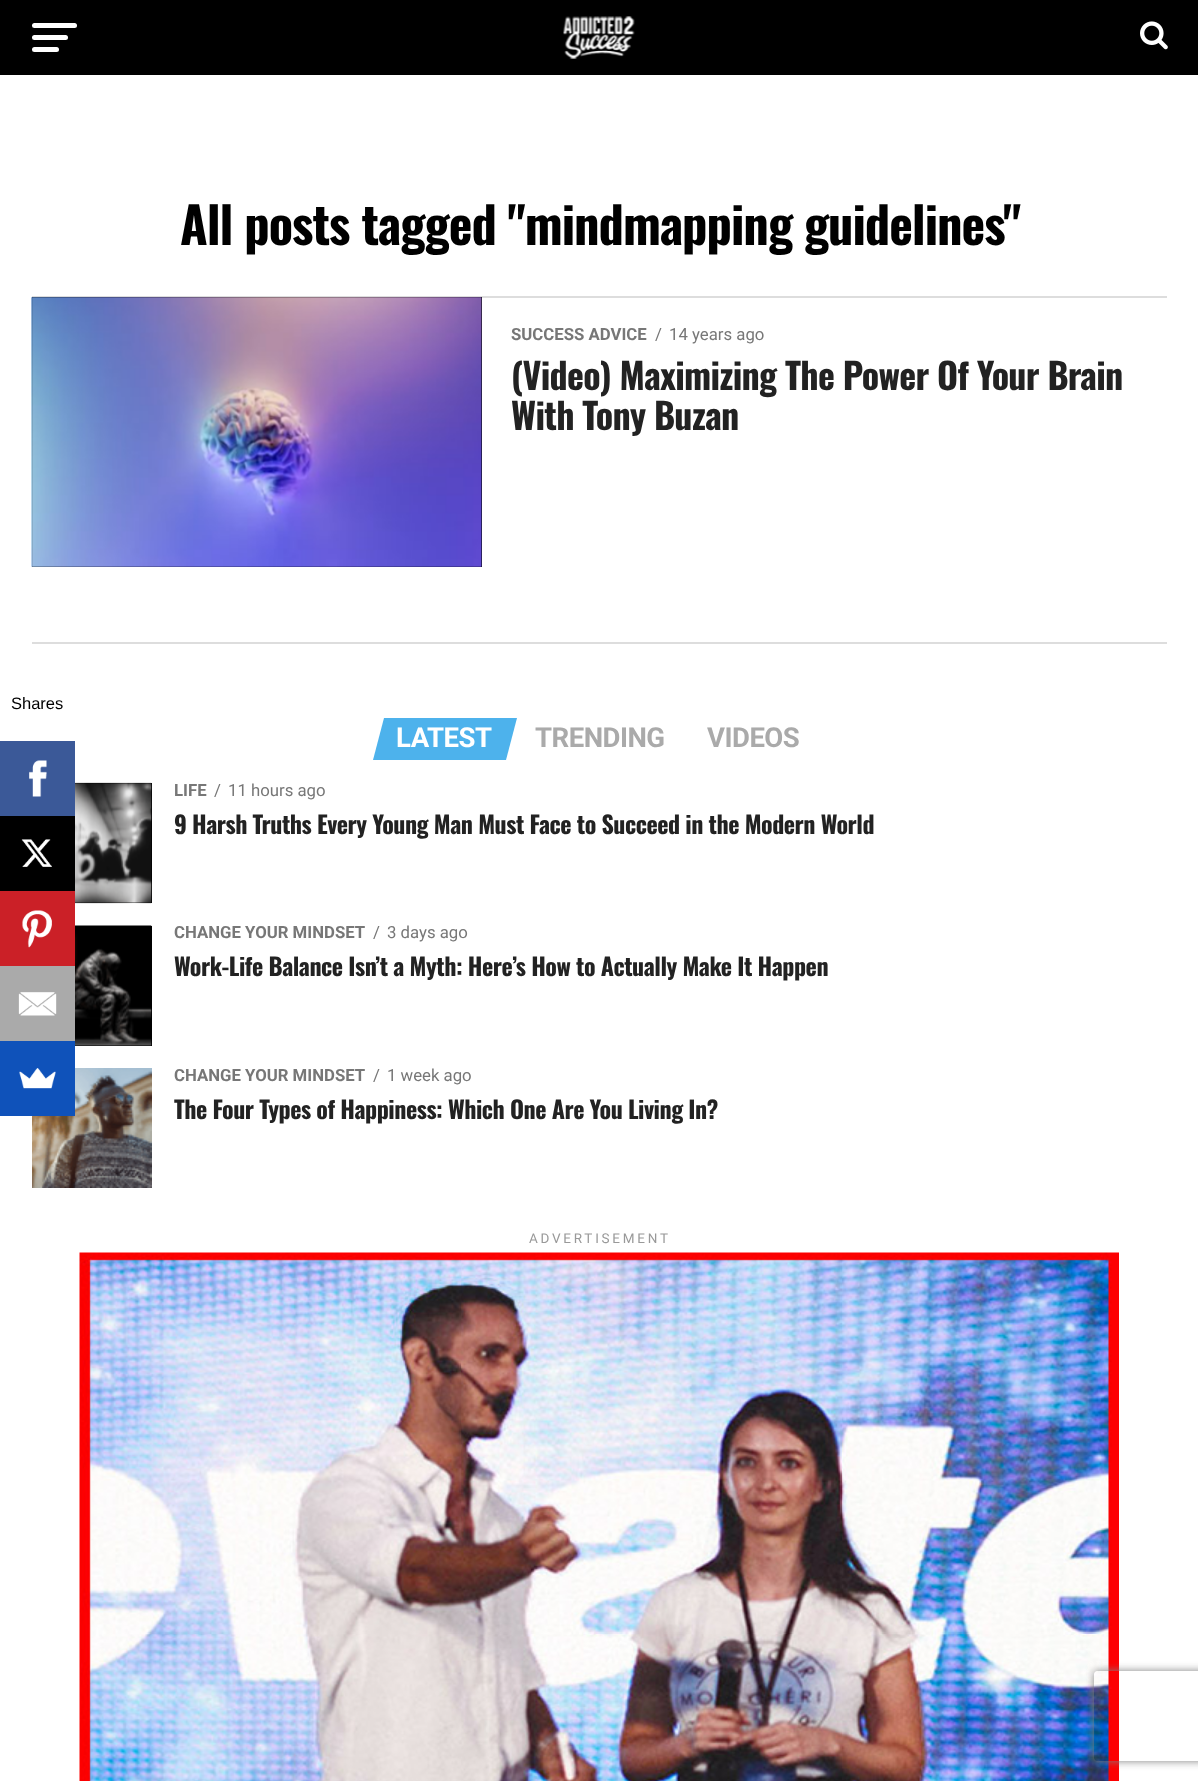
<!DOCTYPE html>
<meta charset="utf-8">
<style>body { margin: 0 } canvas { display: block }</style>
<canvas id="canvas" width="1198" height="1781"></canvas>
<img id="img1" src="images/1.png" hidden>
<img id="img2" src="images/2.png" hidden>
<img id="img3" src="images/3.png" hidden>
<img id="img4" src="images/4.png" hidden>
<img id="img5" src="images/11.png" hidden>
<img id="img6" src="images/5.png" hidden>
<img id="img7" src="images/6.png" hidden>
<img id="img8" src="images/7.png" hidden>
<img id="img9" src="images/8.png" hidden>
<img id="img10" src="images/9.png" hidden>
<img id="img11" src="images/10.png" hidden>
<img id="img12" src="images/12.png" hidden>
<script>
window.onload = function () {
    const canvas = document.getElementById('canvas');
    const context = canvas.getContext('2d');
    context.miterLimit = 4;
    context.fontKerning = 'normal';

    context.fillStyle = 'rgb(255, 255, 255)';
    context.fillRect(0, 0, 1198, 1781);
    context.fillStyle = 'rgb(59, 89, 152)';
    context.fillRect(0, 741, 75, 75);
    context.drawImage(document.getElementById('img1'), 29, 760, 18, 37);
    context.fillStyle = 'rgb(0, 0, 0)';
    context.fillRect(0, 816, 75, 75);
    context.drawImage(document.getElementById('img2'), 21, 839, 31, 28);
    context.fillStyle = 'rgb(203, 32, 39)';
    context.fillRect(0, 891, 75, 75);
    context.drawImage(document.getElementById('img3'), 22, 910, 30, 38);
    context.fillStyle = 'rgb(170, 170, 170)';
    context.fillRect(0, 966, 75, 75);
    context.drawImage(document.getElementById('img4'), 18, 992, 39, 24);
    context.drawImage(document.getElementById('img5'), 32, 1068, 120, 120);
    context.fillStyle = 'rgb(15, 82, 186)';
    context.fillRect(0, 1041, 75, 75);
    context.drawImage(document.getElementById('img6'), 19, 1068, 37, 21);
    context.fillStyle = 'rgb(0, 0, 0)';
    context.fillRect(0, 0, 1198, 75);
    context.fillStyle = 'rgb(255, 255, 255)';
    context.beginPath();
    context.roundRect(32, 23, 45, 5, 2.5);
    context.fill();
    context.beginPath();
    context.roundRect(32, 35, 36, 5, 2.5);
    context.fill();
    context.beginPath();
    context.roundRect(32, 47, 27, 5, 2.5);
    context.fill();
    context.drawImage(document.getElementById('img7'), 563, 16, 72, 43);
    context.drawImage(document.getElementById('img8'), 1140, 21, 28, 29);
    context.fillStyle = 'rgb(221, 221, 221)';
    context.fillRect(32, 296, 1135, 2);
    context.fillStyle = 'rgb(0, 0, 0)';
    context.fillRect(32, 297, 450, 270);
    context.drawImage(document.getElementById('img9'), 31, 297, 451, 270);
    context.fillStyle = 'rgb(221, 221, 221)';
    context.fillRect(32, 642, 1135, 2);
    context.fillStyle = 'rgb(77, 178, 236)';
    context.beginPath();
    context.moveTo(384, 718);
    context.lineTo(517, 718);
    context.lineTo(506, 760);
    context.lineTo(373, 760);
    context.closePath();
    context.fill();
    context.fillStyle = 'rgb(0, 0, 0)';
    context.fillRect(75, 783, 77, 120);
    context.drawImage(document.getElementById('img10'), 75, 782, 77, 122);
    context.fillRect(75, 926, 77, 120);
    context.drawImage(document.getElementById('img11'), 75, 925, 77, 121);
    context.drawImage(document.getElementById('img12'), 79, 1252, 1040, 529);
    context.save();
    context.beginPath();
    context.moveTo(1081, 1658);
    context.lineTo(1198, 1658);
    context.lineTo(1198, 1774);
    context.lineTo(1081, 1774);
    context.closePath();
    context.moveTo(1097, 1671);
    context.lineTo(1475, 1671);
    context.bezierCurveTo(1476.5, 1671, 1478, 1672.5, 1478, 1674);
    context.lineTo(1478, 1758);
    context.bezierCurveTo(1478, 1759.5, 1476.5, 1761, 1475, 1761);
    context.lineTo(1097, 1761);
    context.bezierCurveTo(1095.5, 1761, 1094, 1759.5, 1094, 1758);
    context.lineTo(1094, 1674);
    context.bezierCurveTo(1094, 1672.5, 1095.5, 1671, 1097, 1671);
    context.closePath();
    context.clip('evenodd');
    context.fillStyle = 'rgb(128, 128, 128)';
    context.filter = 'blur(4px)';
    context.beginPath();
    context.roundRect(1094, 1671, 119, 90, 3);
    context.fill();
    context.filter = 'none';
    context.restore();
    context.font = '16.5px Liberation Sans';
    context.fillText('Shares', 11, 709);
    context.letterSpacing = '-1px';
    context.font = 'bold 50.4px Oswald';
    context.fillText('All posts tagged "mindmapping guidelines"', 180, 245);
    context.letterSpacing = '0px';
    context.font = 'bold 16.75px Roboto';
    context.fillStyle = 'rgb(119, 119, 119)';
    context.fillText('SUCCESS ADVICE', 511, 340);
    context.font = '16.75px Roboto';
    context.fillText('/', 655, 340);
    context.fillText('14 years ago', 669, 340);
    context.letterSpacing = '-0.7px';
    context.font = 'bold 36px Oswald';
    context.fillStyle = 'rgb(34, 34, 34)';
    context.fillText('(Video) Maximizing The Power Of Your Brain', 511, 390);
    context.fillText('With Tony Buzan', 511, 430);
    context.letterSpacing = '-0.5px';
    context.font = 'bold 27.5px Roboto';
    context.fillStyle = 'rgb(255, 255, 255)';
    context.fillText('LATEST', 396, 747);
    context.fillStyle = 'rgb(170, 170, 170)';
    context.fillText('TRENDING', 535, 747);
    context.fillText('VIDEOS', 707, 747);
    context.letterSpacing = '0px';
    context.font = 'bold 16.75px Roboto';
    context.fillStyle = 'rgb(119, 119, 119)';
    context.fillText('LIFE', 174, 796);
    context.font = '16.75px Roboto';
    context.fillText('/', 214, 796);
    context.fillText('11 hours ago', 228, 796);
    context.letterSpacing = '-0.48px';
    context.font = 'bold 24px Oswald';
    context.fillStyle = 'rgb(34, 34, 34)';
    context.fillText('9 Harsh Truths Every Young Man Must Face to Succeed in the Modern World', 174, 834);
    context.letterSpacing = '0px';
    context.font = 'bold 16.75px Roboto';
    context.fillStyle = 'rgb(119, 119, 119)';
    context.fillText('CHANGE YOUR MINDSET', 174, 938);
    context.font = '16.75px Roboto';
    context.fillText('/', 373, 938);
    context.fillText('3 days ago', 387, 938);
    context.letterSpacing = '-0.48px';
    context.font = 'bold 24px Oswald';
    context.fillStyle = 'rgb(34, 34, 34)';
    context.fillText('Work-Life Balance Isn’t a Myth: Here’s How to Actually Make It Happen', 174, 976);
    context.letterSpacing = '0px';
    context.font = 'bold 16.75px Roboto';
    context.fillStyle = 'rgb(119, 119, 119)';
    context.fillText('CHANGE YOUR MINDSET', 174, 1081);
    context.font = '16.75px Roboto';
    context.fillText('/', 373, 1081);
    context.fillText('1 week ago', 387, 1081);
    context.letterSpacing = '-0.48px';
    context.font = 'bold 24px Oswald';
    context.fillStyle = 'rgb(34, 34, 34)';
    context.fillText('The Four Types of Happiness: Which One Are You Living In?', 174, 1119);
    context.letterSpacing = '2.75px';
    context.font = '13.5px Roboto';
    context.fillStyle = 'rgb(153, 153, 153)';
    context.fillText('ADVERTISEMENT', 529, 1243);
};
</script>
